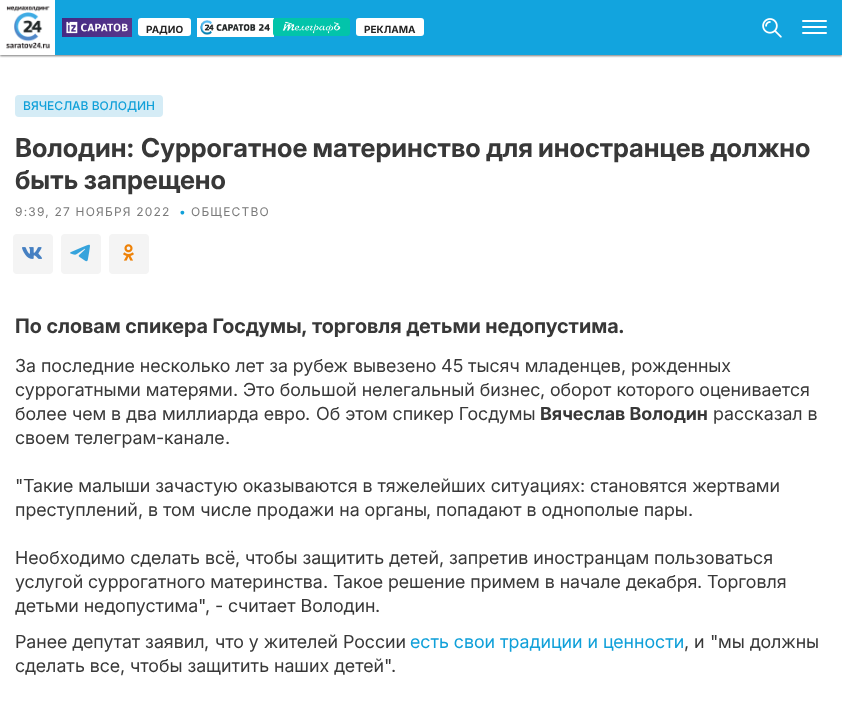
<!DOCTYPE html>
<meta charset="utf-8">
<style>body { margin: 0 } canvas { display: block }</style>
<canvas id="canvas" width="842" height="719"></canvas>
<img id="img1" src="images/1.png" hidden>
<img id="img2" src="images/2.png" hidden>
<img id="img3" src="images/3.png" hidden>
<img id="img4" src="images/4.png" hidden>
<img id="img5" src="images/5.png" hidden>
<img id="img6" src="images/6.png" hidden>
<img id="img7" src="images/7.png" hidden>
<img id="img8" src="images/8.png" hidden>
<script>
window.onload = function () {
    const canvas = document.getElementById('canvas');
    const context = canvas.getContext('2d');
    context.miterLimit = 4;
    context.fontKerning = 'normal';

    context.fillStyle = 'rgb(255, 255, 255)';
    context.fillRect(0, 0, 842, 719);
    context.fillStyle = 'rgb(120, 120, 120)';
    context.filter = 'blur(1px)';
    context.beginPath();
    context.rect(0, 1, 842, 55);
    context.fill();
    context.filter = 'none';
    context.fillStyle = 'rgb(18, 164, 222)';
    context.fillRect(55, 0, 787, 55);
    context.fillStyle = 'rgb(255, 255, 255)';
    context.fillRect(0, 0, 55, 55);
    context.drawImage(document.getElementById('img1'), 6, 6, 44, 43);
    context.drawImage(document.getElementById('img2'), 62, 18, 70, 19);
    context.beginPath();
    context.roundRect(138, 18, 53, 18, 3);
    context.fill();
    context.drawImage(document.getElementById('img3'), 197, 18, 77, 19);
    context.fillStyle = 'rgb(2, 196, 170)';
    context.beginPath();
    context.roundRect(273, 18, 77, 18, 3);
    context.fill();
    context.drawImage(document.getElementById('img4'), 282, 21, 59, 13);
    context.fillStyle = 'rgb(255, 255, 255)';
    context.beginPath();
    context.roundRect(356, 18, 68, 18, 3);
    context.fill();
    context.drawImage(document.getElementById('img5'), 762, 18, 20, 20);
    context.beginPath();
    context.roundRect(802, 20, 25, 2, 1);
    context.fill();
    context.beginPath();
    context.roundRect(802, 26, 25, 2, 1);
    context.fill();
    context.beginPath();
    context.roundRect(802, 32, 25, 2, 1);
    context.fill();
    context.fillStyle = 'rgb(213, 236, 246)';
    context.beginPath();
    context.roundRect(15, 95, 148, 22, 4);
    context.fill();
    context.fillStyle = 'rgb(244, 244, 244)';
    context.beginPath();
    context.roundRect(13, 234, 40, 40, 4);
    context.fill();
    context.drawImage(document.getElementById('img6'), 22, 247, 20, 12);
    context.beginPath();
    context.roundRect(61, 234, 40, 40, 4);
    context.fill();
    context.drawImage(document.getElementById('img7'), 70, 244, 20, 18);
    context.beginPath();
    context.roundRect(109, 234, 40, 40, 4);
    context.fill();
    context.drawImage(document.getElementById('img8'), 123, 244, 11, 17);
    context.font = 'bold 10px "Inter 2"';
    context.fillStyle = 'rgb(36, 36, 36)';
    context.fillText('РАДИО', 146, 33);
    context.fillText('РЕКЛАМА', 364, 33);
    context.font = '500 12px Inter';
    context.fillStyle = 'rgb(16, 160, 217)';
    context.fillText('ВЯЧЕСЛАВ ВОЛОДИН', 23, 110);
    context.font = 'bold 26px Inter';
    context.fillStyle = 'rgb(56, 56, 56)';
    context.fillText('Володин', 15, 157);
    context.font = 'bold 26px "Inter 2"';
    context.fillText(':', 126, 157);
    context.wordSpacing = '-0.5px';
    context.font = 'bold 26px Inter';
    context.fillText('Суррогатное материнство для иностранцев должно', 141, 157);
    context.wordSpacing = '0px';
    context.fillText('быть запрещено', 15, 189);
    context.letterSpacing = '1.2px';
    context.font = '12px Inter';
    context.fillStyle = 'rgb(122, 122, 122)';
    context.fillText('9:39, 27 НОЯБРЯ 2022', 15, 216);
    context.fillStyle = 'rgb(16, 160, 217)';
    context.fillText('•', 179, 216);
    context.fillStyle = 'rgb(122, 122, 122)';
    context.fillText('ОБЩЕСТВО', 191, 216);
    context.letterSpacing = '0px';
    context.font = 'bold 20px "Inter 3"';
    context.fillStyle = 'rgb(56, 56, 56)';
    context.fillText('По словам спикера Госдумы', 15, 333);
    context.font = 'bold 20px "Inter 2"';
    context.fillText(',', 301, 333);
    context.font = 'bold 20px "Inter 3"';
    context.fillText('торговля детьми недопустима', 312, 333);
    context.font = 'bold 20px "Inter 2"';
    context.fillText('.', 618, 333);
    context.font = '18px "Inter 2"';
    context.fillText('За последние несколько лет за рубеж вывезено', 15, 372);
    context.font = '18px Inter';
    context.fillText('45', 441, 372);
    context.font = '18px "Inter 2"';
    context.fillText('тысяч младенцев', 468, 372);
    context.font = '18px Inter';
    context.fillText(',', 621, 372);
    context.font = '18px "Inter 2"';
    context.fillText('рожденных', 631, 372);
    context.fillText('суррогатными матерями', 15, 396);
    context.font = '18px Inter';
    context.fillText('.', 233, 396);
    context.font = '18px "Inter 2"';
    context.fillText('Это большой нелегальный бизнес', 243, 396);
    context.font = '18px Inter';
    context.fillText(',', 540, 396);
    context.font = '18px "Inter 2"';
    context.fillText('оборот которого оценивается', 550, 396);
    context.fillText('более чем в два миллиарда евро', 15, 420);
    context.font = '18px Inter';
    context.fillText('.', 305, 420);
    context.font = '18px "Inter 2"';
    context.fillText('Об этом спикер Госдумы', 316, 420);
    context.font = 'bold 18px "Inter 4"';
    context.fillText('Вячеслав Володин', 540, 420);
    context.font = '18px "Inter 2"';
    context.fillText('рассказал в', 713, 420);
    context.fillText('своем телеграм', 15, 444);
    context.font = '18px Inter';
    context.fillText('-', 156, 444);
    context.font = '18px "Inter 2"';
    context.fillText('канале', 164, 444);
    context.font = '18px Inter';
    context.fillText('.', 225, 444);
    context.fillText('"', 15, 492);
    context.font = '18px "Inter 2"';
    context.fillText('Такие малыши зачастую оказываются в тяжелейших ситуациях', 23, 492);
    context.font = '18px Inter';
    context.fillText(':', 580, 492);
    context.font = '18px "Inter 2"';
    context.fillText('становятся жертвами', 590, 492);
    context.fillText('преступлений', 15, 516);
    context.font = '18px Inter';
    context.fillText(',', 138, 516);
    context.font = '18px "Inter 2"';
    context.fillText('в том числе продажи на органы', 148, 516);
    context.font = '18px Inter';
    context.fillText(',', 426, 516);
    context.font = '18px "Inter 2"';
    context.fillText('попадают в однополые пары', 436, 516);
    context.font = '18px Inter';
    context.fillText('.', 688, 516);
    context.font = '18px "Inter 2"';
    context.fillText('Необходимо сделать всё', 15, 564);
    context.font = '18px Inter';
    context.fillText(',', 235, 564);
    context.font = '18px "Inter 2"';
    context.fillText('чтобы защитить детей', 245, 564);
    context.font = '18px Inter';
    context.fillText(',', 439, 564);
    context.font = '18px "Inter 2"';
    context.fillText('запретив иностранцам пользоваться', 449, 564);
    context.fillText('услугой суррогатного материнства', 15, 588);
    context.font = '18px Inter';
    context.fillText('.', 323, 588);
    context.font = '18px "Inter 2"';
    context.fillText('Такое решение примем в начале декабря', 333, 588);
    context.font = '18px Inter';
    context.fillText('.', 697, 588);
    context.font = '18px "Inter 2"';
    context.fillText('Торговля', 707, 588);
    context.fillText('детьми недопустима', 15, 612);
    context.font = '18px Inter';
    context.fillText('",', 198, 612);
    context.fillText('-', 215, 612);
    context.font = '18px "Inter 2"';
    context.fillText('считает Володин', 228, 612);
    context.font = '18px Inter';
    context.fillText('.', 375, 612);
    context.font = '18px "Inter 2"';
    context.fillText('Ранее депутат заявил', 15, 648);
    context.fillText('что у жителей России', 215, 648);
    context.font = '18px Inter';
    context.fillText('"', 710, 648);
    context.fillText(',', 204, 648);
    context.font = '18px "Inter 2"';
    context.fillStyle = 'rgb(16, 160, 217)';
    context.fillText('есть свои традиции и ценности', 410, 648);
    context.font = '18px Inter';
    context.fillStyle = 'rgb(56, 56, 56)';
    context.fillText(',', 684, 648);
    context.font = '18px "Inter 2"';
    context.fillText('и', 694, 648);
    context.fillText('мы должны', 718, 648);
    context.fillText('сделать все', 15, 672);
    context.font = '18px Inter';
    context.fillText(',', 120, 672);
    context.font = '18px "Inter 2"';
    context.fillText('чтобы защитить наших детей', 130, 672);
    context.font = '18px Inter';
    context.fillText('".', 384, 672);
};
</script>
